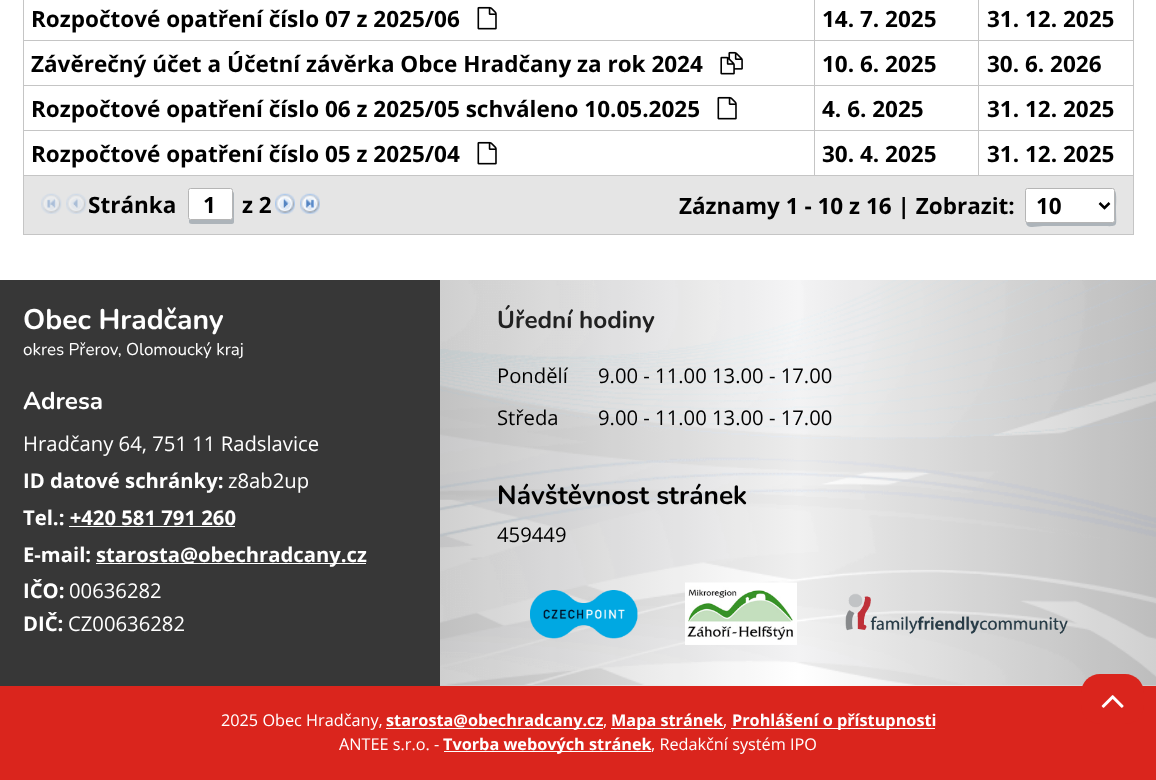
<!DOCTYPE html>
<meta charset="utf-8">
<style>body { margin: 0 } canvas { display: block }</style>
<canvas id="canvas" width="1156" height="780"></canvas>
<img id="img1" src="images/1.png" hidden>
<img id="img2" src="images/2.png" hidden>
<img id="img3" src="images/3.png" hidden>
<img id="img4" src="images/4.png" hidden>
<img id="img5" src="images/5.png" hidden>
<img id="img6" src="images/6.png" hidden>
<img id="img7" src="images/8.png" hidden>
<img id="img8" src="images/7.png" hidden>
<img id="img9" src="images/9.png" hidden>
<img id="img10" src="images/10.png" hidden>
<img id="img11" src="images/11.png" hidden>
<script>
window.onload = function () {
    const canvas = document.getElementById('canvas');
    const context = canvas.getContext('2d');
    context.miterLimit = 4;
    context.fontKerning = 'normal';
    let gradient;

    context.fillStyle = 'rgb(255, 255, 255)';
    context.fillRect(0, 0, 1156, 780);
    context.drawImage(document.getElementById('img1'), 477, 6, 20, 24);
    context.fillStyle = 'rgb(197, 197, 197)';
    context.fillRect(978, 40, 156, 1);
    context.fillRect(978, 85, 156, 1);
    context.fillRect(978, 130, 156, 1);
    context.fillRect(1133, 130, 1, 46);
    context.fillRect(978, 175, 156, 1);
    context.fillRect(978, 130, 1, 46);
    context.fillRect(814, 130, 165, 1);
    context.fillRect(978, 85, 1, 46);
    context.fillRect(814, 85, 165, 1);
    context.fillRect(978, 40, 1, 46);
    context.fillRect(814, 40, 165, 1);
    context.fillRect(814, 175, 165, 1);
    context.fillRect(814, 130, 1, 46);
    context.fillRect(23, 130, 792, 1);
    context.fillRect(814, 85, 1, 46);
    context.fillRect(23, 85, 792, 1);
    context.fillRect(814, 40, 1, 46);
    context.fillRect(23, 40, 792, 1);
    context.fillRect(814, 0, 1, 41);
    context.fillRect(978, 0, 1, 41);
    context.fillRect(23, 175, 792, 1);
    context.fillRect(23, 130, 1, 46);
    context.fillRect(23, 85, 1, 46);
    context.fillRect(23, 0, 1, 86);
    context.drawImage(document.getElementById('img2'), 720, 51, 23, 24);
    context.fillRect(1133, 85, 1, 46);
    context.fillRect(1133, 0, 1, 86);
    context.drawImage(document.getElementById('img1'), 717, 96, 20, 24);
    context.drawImage(document.getElementById('img1'), 477, 141, 20, 24);
    context.fillStyle = 'rgb(229, 229, 229)';
    context.fillRect(24, 176, 1109, 58);
    context.fillStyle = 'rgb(197, 197, 197)';
    context.fillRect(1133, 175, 1, 60);
    context.fillRect(23, 234, 1111, 1);
    context.fillRect(23, 175, 1, 60);
    context.drawImage(document.getElementById('img3'), 41, 193, 21, 21);
    context.drawImage(document.getElementById('img4'), 66, 193, 21, 21);
    context.fillStyle = 'rgb(173, 180, 186)';
    context.beginPath();
    context.moveTo(189, 220);
    context.lineTo(189, 222);
    context.bezierCurveTo(189, 223, 190, 224, 192, 224);
    context.lineTo(232, 224);
    context.bezierCurveTo(233, 224, 234, 223, 234, 222);
    context.lineTo(234, 194);
    context.bezierCurveTo(234, 192, 233, 192, 232, 191);
    context.lineTo(232, 213);
    context.bezierCurveTo(232, 215, 233, 220, 230, 220);
    context.closePath();
    context.fill();
    context.fillStyle = 'rgb(255, 255, 255)';
    context.beginPath();
    context.roundRect(188.5, 188.5, 44, 31, 2);
    context.fill();
    context.strokeStyle = 'rgb(181, 181, 181)';
    context.stroke();
    context.drawImage(document.getElementById('img5'), 275, 193, 20, 21);
    context.drawImage(document.getElementById('img6'), 300, 193, 20, 21);
    context.fillStyle = 'rgb(173, 180, 186)';
    context.beginPath();
    context.moveTo(1026, 222);
    context.bezierCurveTo(1026, 230, 1037, 226, 1043, 226);
    context.lineTo(1099, 226);
    context.bezierCurveTo(1120, 226, 1116, 229, 1116, 208);
    context.bezierCurveTo(1116, 206, 1117, 193, 1115, 191);
    context.lineTo(1115, 220);
    context.bezierCurveTo(1115, 221, 1114, 222, 1112, 222);
    context.lineTo(1028, 222);
    context.closePath();
    context.fill();
    context.fillStyle = 'rgb(255, 255, 255)';
    context.beginPath();
    context.roundRect(1025.5, 188.5, 89, 34, 2);
    context.fill();
    context.stroke();
    context.beginPath();
    context.moveTo(1099.5, 203);
    context.lineTo(1104.5, 208);
    context.lineTo(1109.5, 203);
    context.strokeStyle = 'rgb(0, 0, 0)';
    context.lineWidth = 2.5;
    context.stroke();
    gradient = context.createLinearGradient(440, 483, 1156, 483);
    gradient.addColorStop(0, 'rgb(203, 203, 203)');
    gradient.addColorStop(0.5, 'rgb(255, 255, 255)');
    gradient.addColorStop(1, 'rgb(203, 203, 203)');
    context.fillStyle = gradient;
    context.fillRect(440, 280, 716, 406);
    context.drawImage(document.getElementById('img7'), 440, 280, 716, 405);
    context.fillStyle = 'rgb(218, 37, 29)';
    context.fillRect(0, 686, 1156, 94);
    context.beginPath();
    context.roundRect(1081, 674, 63, 50, 19);
    context.fill();
    context.drawImage(document.getElementById('img8'), 1101, 695, 23, 13);
    context.fillStyle = 'rgb(55, 55, 55)';
    context.fillRect(0, 280, 440, 406);
    context.fillStyle = 'rgb(255, 255, 255)';
    context.fillRect(69, 526, 166, 1);
    context.fillRect(96, 563, 270, 1);
    context.drawImage(document.getElementById('img9'), 530, 590, 108, 49);
    context.drawImage(document.getElementById('img10'), 685, 582, 112, 63);
    context.drawImage(document.getElementById('img11'), 845, 593, 223, 41);
    context.fillRect(386, 728, 217, 1);
    context.fillRect(611, 728, 113, 1);
    context.fillRect(731, 728, 204, 1);
    context.fillRect(444, 751, 207, 1);
    context.font = 'bold 22.5px Open Sans';
    context.fillStyle = 'rgb(0, 0, 0)';
    context.fillText('Rozpočtové opatření číslo 07 z 2025/06', 31, 27);
    context.fillText('14. 7. 2025', 822, 27);
    context.fillText('31. 12. 2025', 987, 27);
    context.fillText('Závěrečný účet a Účetní závěrka Obce Hradčany za rok 2024', 31, 72);
    context.fillText('10. 6. 2025', 822, 72);
    context.fillText('30. 6. 2026', 987, 72);
    context.fillText('Rozpočtové opatření číslo 06 z 2025/05 schváleno 10.05.2025', 31, 117);
    context.fillText('4. 6. 2025', 822, 117);
    context.fillText('31. 12. 2025', 987, 117);
    context.fillText('Rozpočtové opatření číslo 05 z 2025/04', 31, 162);
    context.fillText('30. 4. 2025', 822, 162);
    context.fillText('31. 12. 2025', 987, 162);
    context.fillText('Stránka', 88, 213);
    context.fillText('1', 203, 213);
    context.fillText('z 2', 242, 213);
    context.fillText('Záznamy 1 - 10 z 16 | Zobrazit:', 679, 214);
    context.fillText('10', 1036, 214);
    context.font = 'bold 28.25px Nunito';
    context.fillStyle = 'rgb(255, 255, 255)';
    context.fillText('Obec Hradčany', 23, 329);
    context.font = '17px Nunito';
    context.fillText('okres Přerov, Olomoucký kraj', 23, 355);
    context.font = 'bold 24.25px Nunito';
    context.fillText('Adresa', 23, 409);
    context.font = '20.25px Open Sans';
    context.fillText('Hradčany 64, 751 11 Radslavice', 23, 451);
    context.font = 'bold 20.25px Open Sans';
    context.fillText('ID datové schránky:', 23, 488);
    context.font = '20.25px Open Sans';
    context.fillText('z8ab2up', 228, 488);
    context.font = 'bold 20.25px Open Sans';
    context.fillText('Tel.: +420 581 791 260', 23, 525);
    context.fillText('E-mail:', 23, 562);
    context.fillText('starosta@obechradcany.cz', 96, 562);
    context.fillText('IČO:', 23, 598);
    context.font = '20.25px Open Sans';
    context.fillText('00636282', 69, 598);
    context.font = 'bold 20.25px Open Sans';
    context.fillText('DIČ:', 23, 631);
    context.font = '20.25px Open Sans';
    context.fillText('CZ00636282', 68, 631);
    context.font = 'bold 24.25px Nunito';
    context.fillStyle = 'rgb(33, 33, 33)';
    context.fillText('Úřední hodiny', 497, 328);
    context.font = '20.25px Open Sans';
    context.fillStyle = 'rgb(0, 0, 0)';
    context.fillText('Pondělí', 497, 383);
    context.fillText('9.00 - 11.00 13.00 - 17.00', 598, 383);
    context.fillText('Středa', 497, 425);
    context.fillText('9.00 - 11.00 13.00 - 17.00', 598, 425);
    context.font = 'bold 26.25px Nunito';
    context.fillText('Návštěvnost stránek', 497, 504);
    context.font = '20.25px Open Sans';
    context.fillText('459449', 497, 542);
    context.font = '16.25px Open Sans';
    context.fillStyle = 'rgb(255, 255, 255)';
    context.fillText('2025 Obec Hradčany,', 221, 726);
    context.font = 'bold 16.25px Open Sans';
    context.fillText('starosta@obechradcany.cz', 386, 726);
    context.font = '16.25px Open Sans';
    context.fillText(',', 603, 726);
    context.font = 'bold 16.25px Open Sans';
    context.fillText('Mapa stránek', 611, 726);
    context.font = '16.25px Open Sans';
    context.fillText(',', 723, 726);
    context.font = 'bold 16.25px Open Sans';
    context.fillText('Prohlášení o přístupnosti', 732, 726);
    context.font = '16.25px Open Sans';
    context.fillText('ANTEE s.r.o. -', 339, 750);
    context.font = 'bold 16.25px Open Sans';
    context.fillText('Tvorba webových stránek', 443, 750);
    context.font = '16.25px Open Sans';
    context.fillText(', Redakční systém IPO', 651, 750);
};
</script>
